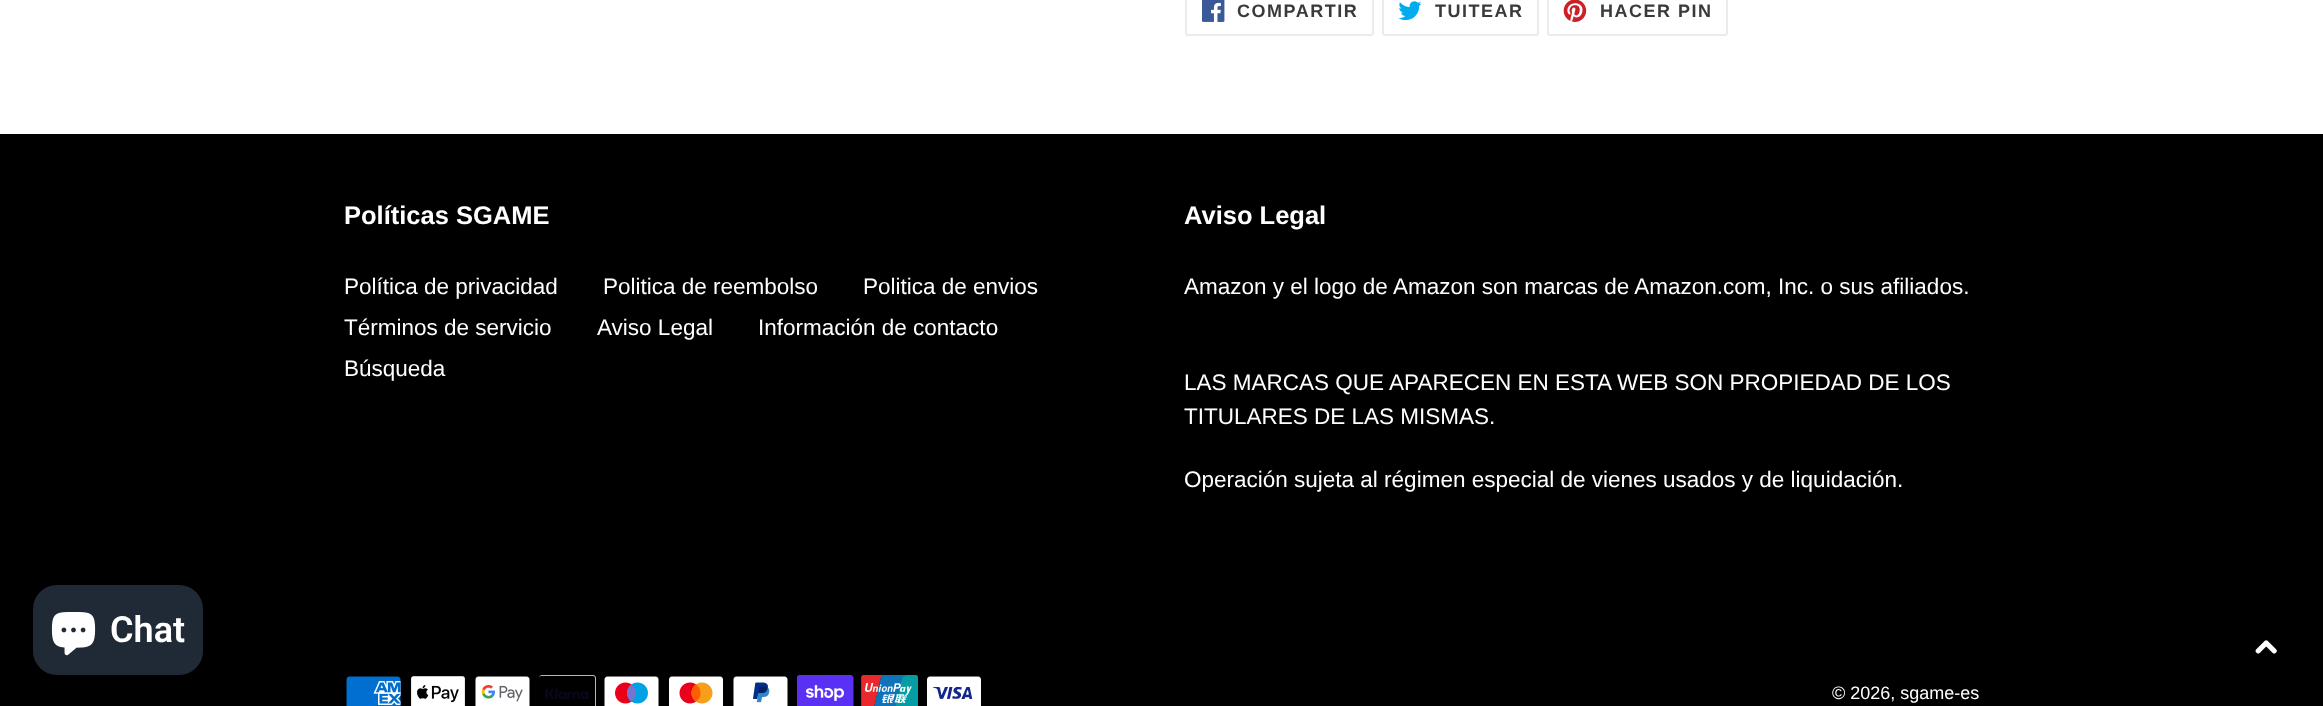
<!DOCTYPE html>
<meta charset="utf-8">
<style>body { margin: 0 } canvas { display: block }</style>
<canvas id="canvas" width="2323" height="706"></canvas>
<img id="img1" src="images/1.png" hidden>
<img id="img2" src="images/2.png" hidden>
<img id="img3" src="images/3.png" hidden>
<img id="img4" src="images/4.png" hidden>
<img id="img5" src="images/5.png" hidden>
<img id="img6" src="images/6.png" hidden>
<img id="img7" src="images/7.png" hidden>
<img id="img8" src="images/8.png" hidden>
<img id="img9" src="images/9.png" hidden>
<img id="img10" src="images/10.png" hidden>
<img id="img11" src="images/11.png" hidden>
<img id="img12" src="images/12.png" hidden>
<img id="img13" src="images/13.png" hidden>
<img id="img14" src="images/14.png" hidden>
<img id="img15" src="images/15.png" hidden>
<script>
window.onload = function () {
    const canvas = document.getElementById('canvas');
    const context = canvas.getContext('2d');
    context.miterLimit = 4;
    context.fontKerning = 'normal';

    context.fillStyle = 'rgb(255, 255, 255)';
    context.fillRect(0, 0, 2323, 706);
    context.fillStyle = 'rgb(0, 0, 0)';
    context.fillRect(0, 134, 2323, 572);
    context.fillStyle = 'rgb(32, 42, 54)';
    context.beginPath();
    context.roundRect(33, 585, 170, 90, 24);
    context.fill();
    context.drawImage(document.getElementById('img1'), 51, 612, 45, 44);
    context.beginPath();
    context.roundRect(1186, -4, 187, 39, 2);
    context.strokeStyle = 'rgb(235, 235, 235)';
    context.lineWidth = 2;
    context.stroke();
    context.drawImage(document.getElementById('img2'), 1202, 0, 23, 22);
    context.beginPath();
    context.roundRect(1383, -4, 155, 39, 2);
    context.stroke();
    context.drawImage(document.getElementById('img3'), 1398, 1, 24, 20);
    context.beginPath();
    context.roundRect(1548, -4, 179, 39, 2);
    context.stroke();
    context.drawImage(document.getElementById('img4'), 1563, 0, 24, 22);
    context.drawImage(document.getElementById('img5'), 346, 676, 55, 30);
    context.drawImage(document.getElementById('img6'), 411, 676, 54, 30);
    context.drawImage(document.getElementById('img7'), 475, 676, 55, 30);
    context.drawImage(document.getElementById('img8'), 539, 675, 57, 31);
    context.drawImage(document.getElementById('img9'), 604, 676, 55, 30);
    context.drawImage(document.getElementById('img10'), 669, 676, 54, 30);
    context.drawImage(document.getElementById('img11'), 733, 676, 55, 30);
    context.drawImage(document.getElementById('img12'), 797, 675, 57, 31);
    context.drawImage(document.getElementById('img13'), 861, 675, 57, 31);
    context.drawImage(document.getElementById('img14'), 927, 676, 54, 30);
    context.drawImage(document.getElementById('img15'), 2255, 640, 22, 14);
    context.font = '600 36px Roboto';
    context.fillStyle = 'rgb(255, 255, 255)';
    context.fillText('Chat', 110, 642);
    context.letterSpacing = '1.5px';
    context.font = 'bold 18px Liberation Sans';
    context.fillStyle = 'rgb(58, 58, 58)';
    context.fillText('COMPARTIR', 1237, 17);
    context.fillText('TUITEAR', 1435, 17);
    context.fillText('HACER PIN', 1600, 17);
    context.letterSpacing = '0px';
    context.font = 'bold 25.5px Liberation Sans';
    context.fillStyle = 'rgb(255, 255, 255)';
    context.fillText('Políticas SGAME', 344, 224);
    context.font = '22.5px Liberation Sans';
    context.fillText('Política de privacidad', 344, 294);
    context.fillText('Politica de reembolso', 603, 294);
    context.fillText('Politica de envios', 863, 294);
    context.fillText('Términos de servicio', 344, 335);
    context.fillText('Aviso Legal', 597, 335);
    context.fillText('Información de contacto', 758, 335);
    context.fillText('Búsqueda', 344, 376);
    context.font = 'bold 25.5px Liberation Sans';
    context.fillText('Aviso Legal', 1184, 224);
    context.font = '22.5px Liberation Sans';
    context.fillText('Amazon y el logo de Amazon son marcas de Amazon.com, Inc. o sus afiliados.', 1184, 294);
    context.fillText('LAS MARCAS QUE APARECEN EN ESTA WEB SON PROPIEDAD DE LOS', 1184, 390);
    context.fillText('TITULARES DE LAS MISMAS.', 1184, 424);
    context.fillText('Operación sujeta al régimen especial de vienes usados y de liquidación.', 1184, 487);
    context.font = '18px Liberation Sans';
    context.fillText('© 2026, sgame-es', 1832, 699);
};
</script>
